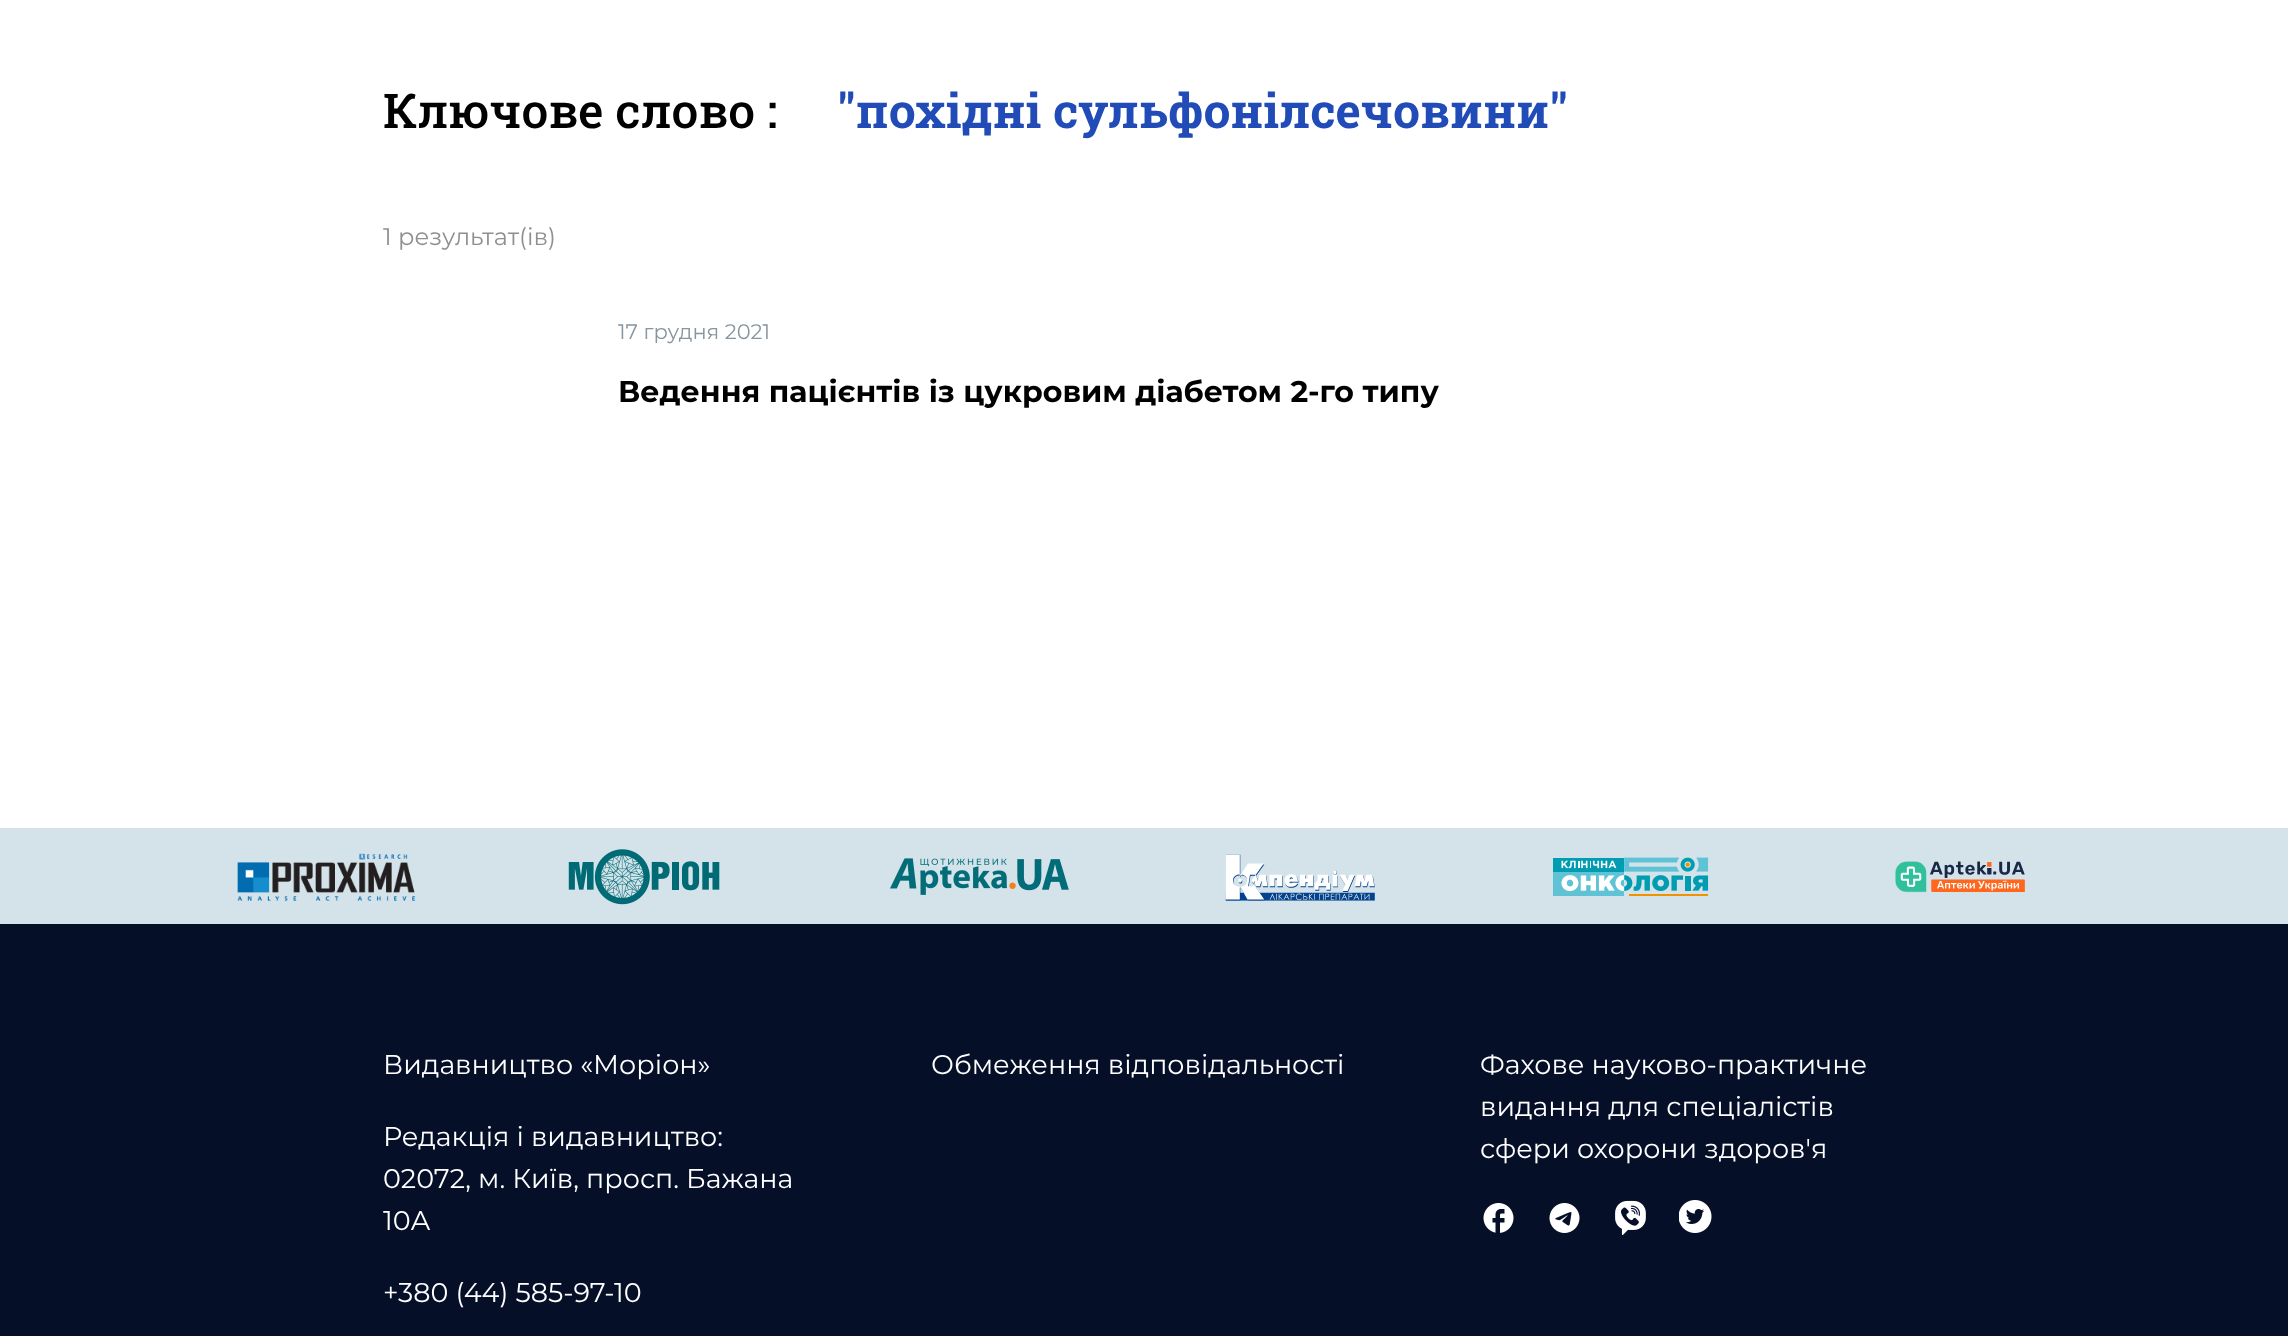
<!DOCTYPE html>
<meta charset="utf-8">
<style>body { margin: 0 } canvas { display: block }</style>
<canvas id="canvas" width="2288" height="1336"></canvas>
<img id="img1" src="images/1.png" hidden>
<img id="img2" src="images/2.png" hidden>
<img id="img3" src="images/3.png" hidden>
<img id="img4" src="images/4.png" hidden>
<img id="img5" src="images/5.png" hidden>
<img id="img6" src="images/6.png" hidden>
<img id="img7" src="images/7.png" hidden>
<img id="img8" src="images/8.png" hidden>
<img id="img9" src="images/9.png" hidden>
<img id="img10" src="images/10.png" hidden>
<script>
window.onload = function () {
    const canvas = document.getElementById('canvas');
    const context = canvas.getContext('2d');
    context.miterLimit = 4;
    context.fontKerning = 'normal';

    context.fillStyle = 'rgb(255, 255, 255)';
    context.fillRect(0, 0, 2288, 1336);
    context.fillStyle = 'rgb(212, 227, 234)';
    context.fillRect(0, 828, 2288, 96);
    context.drawImage(document.getElementById('img1'), 237, 853, 179, 48);
    context.drawImage(document.getElementById('img2'), 568, 849, 152, 56);
    context.drawImage(document.getElementById('img3'), 890, 858, 179, 37);
    context.drawImage(document.getElementById('img4'), 1225, 854, 150, 47);
    context.drawImage(document.getElementById('img5'), 1553, 857, 156, 39);
    context.drawImage(document.getElementById('img6'), 1895, 861, 130, 32);
    context.fillStyle = 'rgb(5, 15, 40)';
    context.fillRect(0, 924, 2288, 412);
    context.drawImage(document.getElementById('img7'), 1483, 1203, 31, 30);
    context.drawImage(document.getElementById('img8'), 1549, 1203, 31, 30);
    context.drawImage(document.getElementById('img9'), 1615, 1200, 31, 35);
    context.drawImage(document.getElementById('img10'), 1679, 1200, 33, 33);
    context.font = '500 48px Roboto Slab';
    context.fillStyle = 'rgb(0, 0, 0)';
    context.fillText('Ключове слово :', 383, 128);
    context.font = 'bold 48px Roboto Slab';
    context.fillStyle = 'rgb(33, 75, 183)';
    context.fillText('"похідні сульфонілсечовини"', 837, 128);
    context.font = '24px Montserrat';
    context.fillStyle = 'rgb(142, 143, 145)';
    context.fillText('1 результат(ів)', 383, 245);
    context.font = '21px Montserrat';
    context.fillStyle = 'rgb(134, 149, 159)';
    context.fillText('17 грудня 2021', 618, 339);
    context.font = 'bold 30px Montserrat';
    context.fillStyle = 'rgb(0, 0, 0)';
    context.fillText('Ведення пацієнтів із цукровим діабетом 2-го типу', 618, 402);
    context.font = '27px Montserrat';
    context.fillStyle = 'rgb(255, 255, 255)';
    context.fillText('Видавництво «Моріон»', 383, 1074);
    context.fillText('Редакція і видавництво:', 383, 1146);
    context.fillText('02072, м. Київ, просп. Бажана', 383, 1188);
    context.fillText('10А', 383, 1230);
    context.fillText('+380 (44) 585-97-10', 383, 1302);
    context.fillText('Обмеження відповідальності', 931, 1074);
    context.fillText('Фахове науково-практичне', 1480, 1074);
    context.fillText('видання для спеціалістів', 1480, 1116);
    context.fillText('сфери охорони здоров\'я', 1480, 1158);
};
</script>
